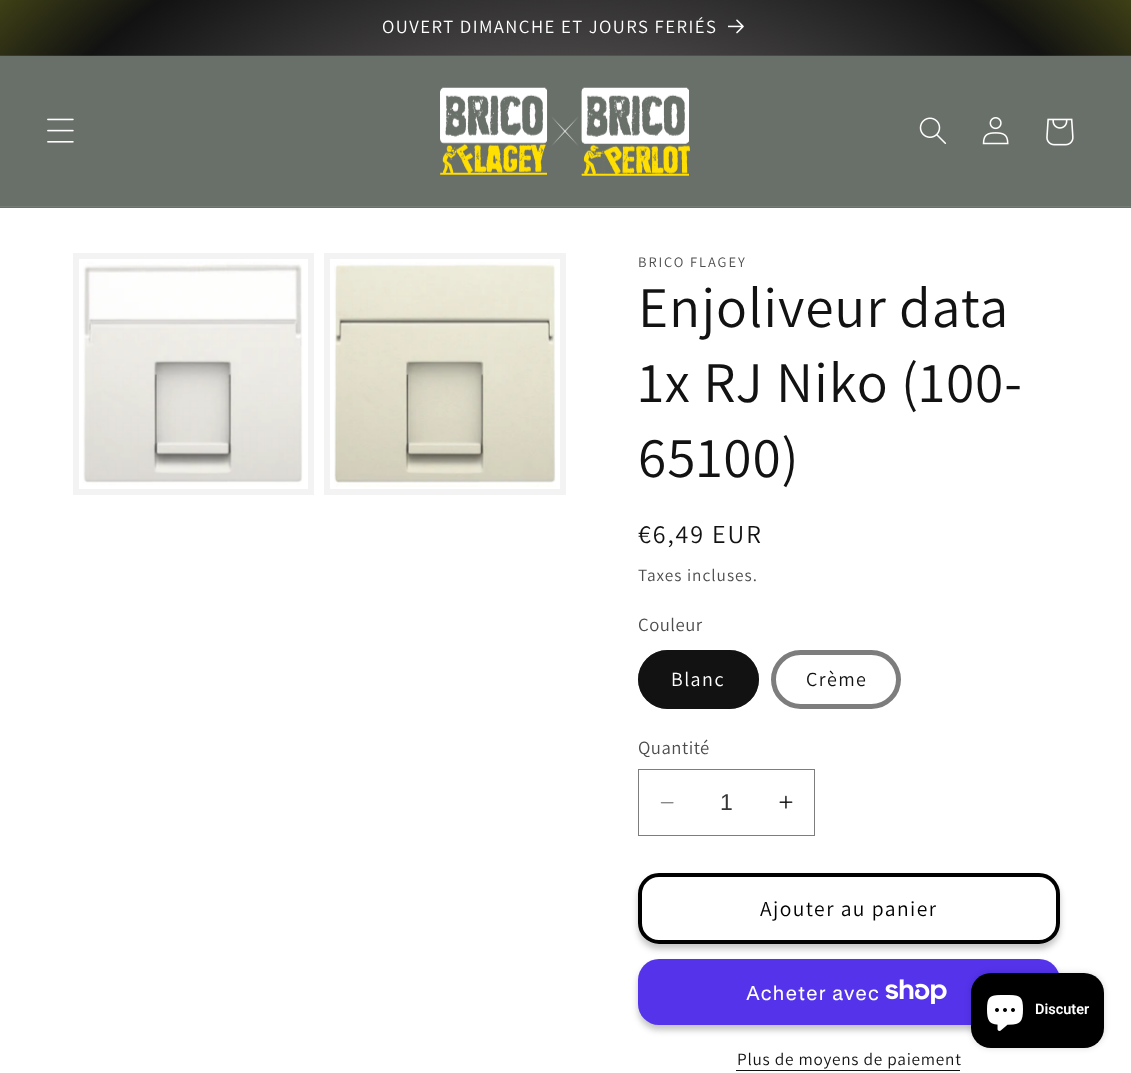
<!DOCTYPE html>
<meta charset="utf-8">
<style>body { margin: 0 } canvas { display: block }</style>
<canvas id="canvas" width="1131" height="1073"></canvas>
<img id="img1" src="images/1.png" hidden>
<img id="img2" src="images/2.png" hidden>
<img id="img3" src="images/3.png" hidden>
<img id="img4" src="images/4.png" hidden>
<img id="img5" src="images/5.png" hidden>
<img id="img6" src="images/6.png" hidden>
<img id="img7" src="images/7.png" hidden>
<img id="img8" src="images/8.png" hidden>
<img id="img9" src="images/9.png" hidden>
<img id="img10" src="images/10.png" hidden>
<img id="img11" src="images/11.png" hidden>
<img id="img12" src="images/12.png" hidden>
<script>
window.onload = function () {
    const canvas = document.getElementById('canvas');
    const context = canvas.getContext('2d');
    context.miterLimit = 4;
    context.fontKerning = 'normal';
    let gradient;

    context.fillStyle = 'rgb(255, 255, 255)';
    context.fillRect(0, 0, 1131, 1073);
    gradient = context.createRadialGradient(566, 566.01, 0, 566, 566.01, 800);
    gradient.addColorStop(0, 'rgb(206, 198, 198)');
    gradient.addColorStop(0.87, 'rgb(18, 18, 18)');
    gradient.addColorStop(1, 'rgb(62, 64, 22)');
    context.fillStyle = gradient;
    context.beginPath();
    context.rect(0, 0, 1131, 55);
    context.save();
    context.clip();
    context.scale(1, 759 / 800);
    context.fillRect(0, 0, 1131, 1131);
    context.restore();
    gradient = context.createRadialGradient(566, 566.01, 0, 566, 566.01, 800);
    gradient.addColorStop(0, 'rgb(210, 203, 203)');
    gradient.addColorStop(0.87, 'rgb(37, 37, 37)');
    gradient.addColorStop(1, 'rgb(77, 79, 41)');
    context.fillStyle = gradient;
    context.beginPath();
    context.rect(0, 55, 1131, 1);
    context.save();
    context.clip();
    context.scale(1, 759 / 800);
    context.fillRect(0, 0, 1131, 1131);
    context.restore();
    context.drawImage(document.getElementById('img1'), 728, 19, 16, 15);
    context.fillStyle = 'rgb(105, 111, 105)';
    context.fillRect(0, 56, 1131, 152);
    context.fillStyle = 'rgb(117, 123, 117)';
    context.fillRect(0, 206, 1131, 1);
    context.drawImage(document.getElementById('img2'), 47, 118, 27, 25);
    context.drawImage(document.getElementById('img3'), 440, 87, 250, 89);
    context.drawImage(document.getElementById('img4'), 919, 117, 28, 27);
    context.drawImage(document.getElementById('img5'), 982, 117, 27, 28);
    context.drawImage(document.getElementById('img6'), 1046, 118, 28, 28);
    context.strokeStyle = 'rgb(243, 243, 243)';
    context.lineWidth = 6;
    context.strokeRect(76, 256, 235, 236);
    context.drawImage(document.getElementById('img7'), 83, 261, 220, 224);
    context.strokeRect(327, 256, 236, 236);
    context.drawImage(document.getElementById('img8'), 334, 262, 222, 225);
    context.fillStyle = 'rgb(18, 18, 18)';
    context.beginPath();
    context.roundRect(638, 650, 121, 59, 29.5);
    context.fill();
    context.beginPath();
    context.roundRect(640.5, 652.5, 116, 54, 27);
    context.strokeStyle = 'rgba(18, 18, 18, 0.55)';
    context.lineWidth = 5;
    context.stroke();
    context.beginPath();
    context.roundRect(773.5, 652.5, 125, 54, 27);
    context.strokeStyle = 'rgb(125, 125, 125)';
    context.stroke();
    context.drawImage(document.getElementById('img9'), 660, 802, 14, 2);
    context.drawImage(document.getElementById('img10'), 779, 795, 14, 14);
    context.lineWidth = 1;
    context.strokeRect(638.5, 769.5, 176, 66);
    context.fillStyle = 'rgba(18, 18, 18, 0.25)';
    context.filter = 'blur(3px)';
    context.beginPath();
    context.roundRect(638, 878, 422, 71, 21);
    context.fill();
    context.filter = 'none';
    context.fillStyle = 'rgb(255, 255, 255)';
    context.beginPath();
    context.roundRect(638, 873, 422, 71, 21);
    context.fill();
    context.beginPath();
    context.roundRect(640, 875, 418, 67, 19);
    context.strokeStyle = 'rgb(255, 255, 255)';
    context.lineWidth = 4;
    context.stroke();
    context.beginPath();
    context.roundRect(640, 875, 418, 67, 19);
    context.strokeStyle = 'rgb(0, 0, 0)';
    context.stroke();
    context.fillStyle = 'rgba(18, 18, 18, 0.25)';
    context.filter = 'blur(3px)';
    context.beginPath();
    context.roundRect(638, 964, 422, 66, 21);
    context.fill();
    context.filter = 'none';
    context.fillStyle = 'rgb(84, 51, 235)';
    context.beginPath();
    context.roundRect(638, 959, 422, 66, 21);
    context.fill();
    context.drawImage(document.getElementById('img11'), 885, 979, 62, 25);
    context.fillStyle = 'rgb(18, 18, 18)';
    context.fillRect(736, 1070, 224, 1);
    context.fillStyle = 'rgba(0, 0, 0, 0.15)';
    context.filter = 'blur(3px)';
    context.beginPath();
    context.roundRect(971, 973, 133, 75, 20);
    context.fill();
    context.filter = 'none';
    context.fillStyle = 'rgb(0, 0, 0)';
    context.beginPath();
    context.roundRect(971, 973, 133, 75, 20);
    context.fill();
    context.drawImage(document.getElementById('img12'), 987, 995, 36, 36);
    context.letterSpacing = '1.45px';
    context.font = '18.7px Assistant';
    context.fillStyle = 'rgb(255, 255, 255)';
    context.fillText('OUVERT DIMANCHE ET JOURS FERIÉS', 382, 33);
    context.letterSpacing = '1.9px';
    context.font = '14.5px Assistant';
    context.fillStyle = 'rgb(77, 77, 77)';
    context.fillText('BRICO FLAGEY', 638, 267);
    context.letterSpacing = '0.9px';
    context.font = '57.5px Assistant';
    context.fillStyle = 'rgb(18, 18, 18)';
    context.fillText('Enjoliveur data', 638, 327);
    context.fillText('1x RJ Niko (100-', 638, 402);
    context.fillText('65100)', 638, 477);
    context.letterSpacing = '1.9px';
    context.font = '26px Assistant';
    context.fillText('€6,49 EUR', 638, 543);
    context.letterSpacing = '1px';
    context.font = '17.25px Assistant';
    context.fillStyle = 'rgb(77, 77, 77)';
    context.fillText('Taxes incluses.', 638, 581);
    context.letterSpacing = '0.5px';
    context.font = '18.7px Assistant';
    context.fillText('Couleur', 638, 631);
    context.letterSpacing = '1.45px';
    context.font = '20px Assistant';
    context.fillStyle = 'rgb(255, 255, 255)';
    context.fillText('Blanc', 671, 686);
    context.fillStyle = 'rgb(18, 18, 18)';
    context.fillText('Crème', 806, 686);
    context.letterSpacing = '0.5px';
    context.font = '18.7px Assistant';
    context.fillStyle = 'rgb(77, 77, 77)';
    context.fillText('Quantité', 638, 754);
    context.letterSpacing = '0px';
    context.font = '23px Liberation Sans';
    context.fillStyle = 'rgb(54, 54, 54)';
    context.fillText('1', 720, 810);
    context.letterSpacing = '1.45px';
    context.font = '21.5px Assistant';
    context.fillStyle = 'rgb(0, 0, 0)';
    context.fillText('Ajouter au panier', 760, 916);
    context.letterSpacing = '0.9px';
    context.font = '20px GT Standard';
    context.fillStyle = 'rgb(255, 255, 255)';
    context.fillText('Acheter avec', 746, 1000);
    context.letterSpacing = '0.75px';
    context.font = '17.25px Assistant';
    context.fillStyle = 'rgb(18, 18, 18)';
    context.fillText('Plus de moyens de paiement', 737, 1065);
    context.letterSpacing = '0px';
    context.font = '600 14.5px Roboto';
    context.fillStyle = 'rgb(255, 255, 255)';
    context.fillText('Discuter', 1035, 1014);
};
</script>
